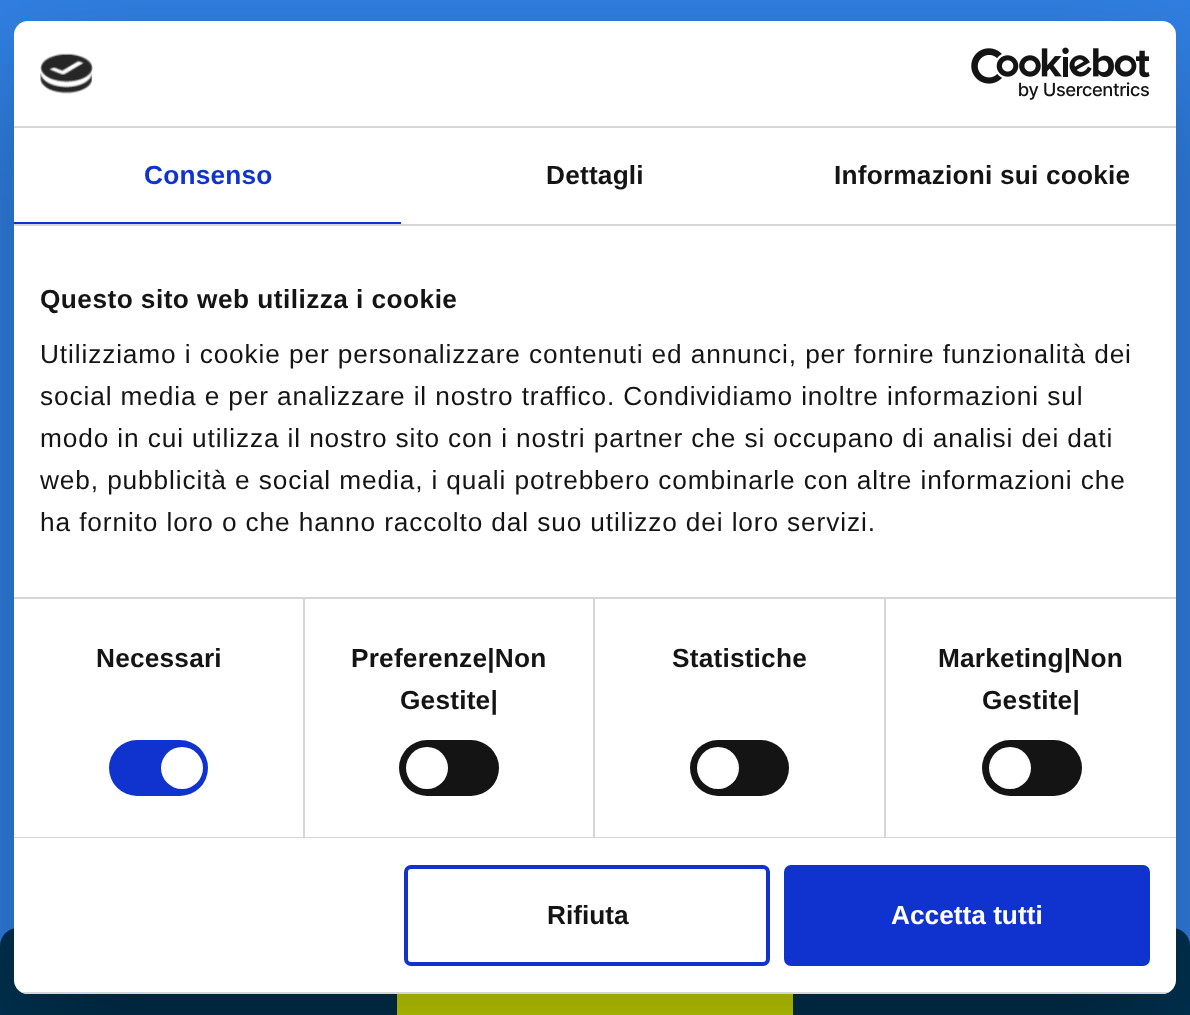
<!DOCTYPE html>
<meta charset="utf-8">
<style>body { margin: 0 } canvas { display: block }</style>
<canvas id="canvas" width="1190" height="1015"></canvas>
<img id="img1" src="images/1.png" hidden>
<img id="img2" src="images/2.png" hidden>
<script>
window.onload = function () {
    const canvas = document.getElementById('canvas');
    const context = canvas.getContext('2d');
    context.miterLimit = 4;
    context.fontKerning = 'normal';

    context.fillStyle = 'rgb(48, 127, 226)';
    context.fillRect(0, 0, 1190, 1015);
    context.fillStyle = 'rgb(0, 50, 81)';
    context.beginPath();
    context.roundRect(0, 928, 397, 87, [18, 18, 0, 0]);
    context.fill();
    context.fillStyle = 'rgb(208, 223, 0)';
    context.fillRect(397, 994, 396, 21);
    context.fillStyle = 'rgb(0, 50, 81)';
    context.beginPath();
    context.roundRect(793, 928, 397, 87, [18, 18, 0, 0]);
    context.fill();
    context.fillStyle = 'rgba(0, 0, 0, 0.3)';
    context.filter = 'blur(59.5px)';
    context.beginPath();
    context.roundRect(14, 77, 1162, 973, 14);
    context.fill();
    context.filter = 'none';
    context.fillStyle = 'rgb(255, 255, 255)';
    context.beginPath();
    context.roundRect(14, 21, 1162, 973, 14);
    context.fill();
    context.fillStyle = 'rgb(214, 214, 214)';
    context.fillRect(14, 126, 1162, 2);
    context.drawImage(document.getElementById('img1'), 40, 53, 53, 41);
    context.drawImage(document.getElementById('img2'), 971, 47, 179, 53);
    context.fillRect(14, 224, 1162, 2);
    context.fillStyle = 'rgb(16, 50, 207)';
    context.fillRect(14, 222, 387, 2);
    context.fillStyle = 'rgb(214, 214, 214)';
    context.fillRect(14, 597, 1162, 2);
    context.fillRect(14, 837, 1162, 1);
    context.fillRect(303, 599, 2, 238);
    context.fillStyle = 'rgb(16, 50, 207)';
    context.beginPath();
    context.roundRect(109, 740, 99, 56, 28);
    context.fill();
    context.fillStyle = 'rgb(255, 255, 255)';
    context.beginPath();
    context.arc(182, 768, 21, 0, 2 * Math.PI);
    context.fill();
    context.fillStyle = 'rgb(214, 214, 214)';
    context.fillRect(593, 599, 2, 238);
    context.fillStyle = 'rgb(20, 20, 20)';
    context.beginPath();
    context.roundRect(399, 740, 100, 56, 28);
    context.fill();
    context.fillStyle = 'rgb(255, 255, 255)';
    context.beginPath();
    context.arc(427, 768, 21, 0, 2 * Math.PI);
    context.fill();
    context.fillStyle = 'rgb(214, 214, 214)';
    context.fillRect(884, 599, 2, 238);
    context.fillStyle = 'rgb(20, 20, 20)';
    context.beginPath();
    context.roundRect(690, 740, 99, 56, 28);
    context.fill();
    context.fillStyle = 'rgb(255, 255, 255)';
    context.beginPath();
    context.arc(718, 768, 21, 0, 2 * Math.PI);
    context.fill();
    context.fillStyle = 'rgb(20, 20, 20)';
    context.beginPath();
    context.roundRect(982, 740, 100, 56, 28);
    context.fill();
    context.fillStyle = 'rgb(255, 255, 255)';
    context.beginPath();
    context.arc(1010, 768, 21, 0, 2 * Math.PI);
    context.fill();
    context.save();
    context.beginPath();
    context.roundRect(14, 21, 1162, 973, 14);
    context.clip();
    context.fillStyle = 'rgb(214, 214, 214)';
    context.fillRect(14, 992, 1162, 2);
    context.restore();
    context.beginPath();
    context.roundRect(406, 867, 362, 97, 5);
    context.strokeStyle = 'rgb(16, 50, 207)';
    context.lineWidth = 4;
    context.stroke();
    context.fillStyle = 'rgb(16, 50, 207)';
    context.beginPath();
    context.roundRect(786, 867, 362, 97, 5);
    context.fill();
    context.stroke();
    context.letterSpacing = '0.2px';
    context.font = 'bold 26.25px Liberation Sans';
    context.fillText('Consenso', 144, 184);
    context.fillStyle = 'rgb(20, 20, 20)';
    context.fillText('Dettagli', 546, 184);
    context.fillText('Informazioni sui cookie', 834, 184);
    context.letterSpacing = '0.45px';
    context.fillText('Questo sito web utilizza i cookie', 40, 308);
    context.letterSpacing = '0.88px';
    context.font = '26.25px Liberation Sans';
    context.fillText('Utilizziamo i cookie per personalizzare contenuti ed annunci, per fornire funzionalità dei', 40, 363);
    context.fillText('social media e per analizzare il nostro traffico. Condividiamo inoltre informazioni sul', 40, 405);
    context.fillText('modo in cui utilizza il nostro sito con i nostri partner che si occupano di analisi dei dati', 40, 447);
    context.fillText('web, pubblicità e social media, i quali potrebbero combinarle con altre informazioni che', 40, 489);
    context.fillText('ha fornito loro o che hanno raccolto dal suo utilizzo dei loro servizi.', 40, 531);
    context.letterSpacing = '0.2px';
    context.font = 'bold 26.25px Liberation Sans';
    context.fillText('Necessari', 96, 667);
    context.fillText('Preferenze|Non', 351, 667);
    context.fillText('Gestite|', 400, 709);
    context.fillText('Statistiche', 672, 667);
    context.fillText('Marketing|Non', 938, 667);
    context.fillText('Gestite|', 982, 709);
    context.letterSpacing = '0px';
    context.fillText('Rifiuta', 547, 924);
    context.fillStyle = 'rgb(255, 255, 255)';
    context.fillText('Accetta tutti', 891, 924);
};
</script>
